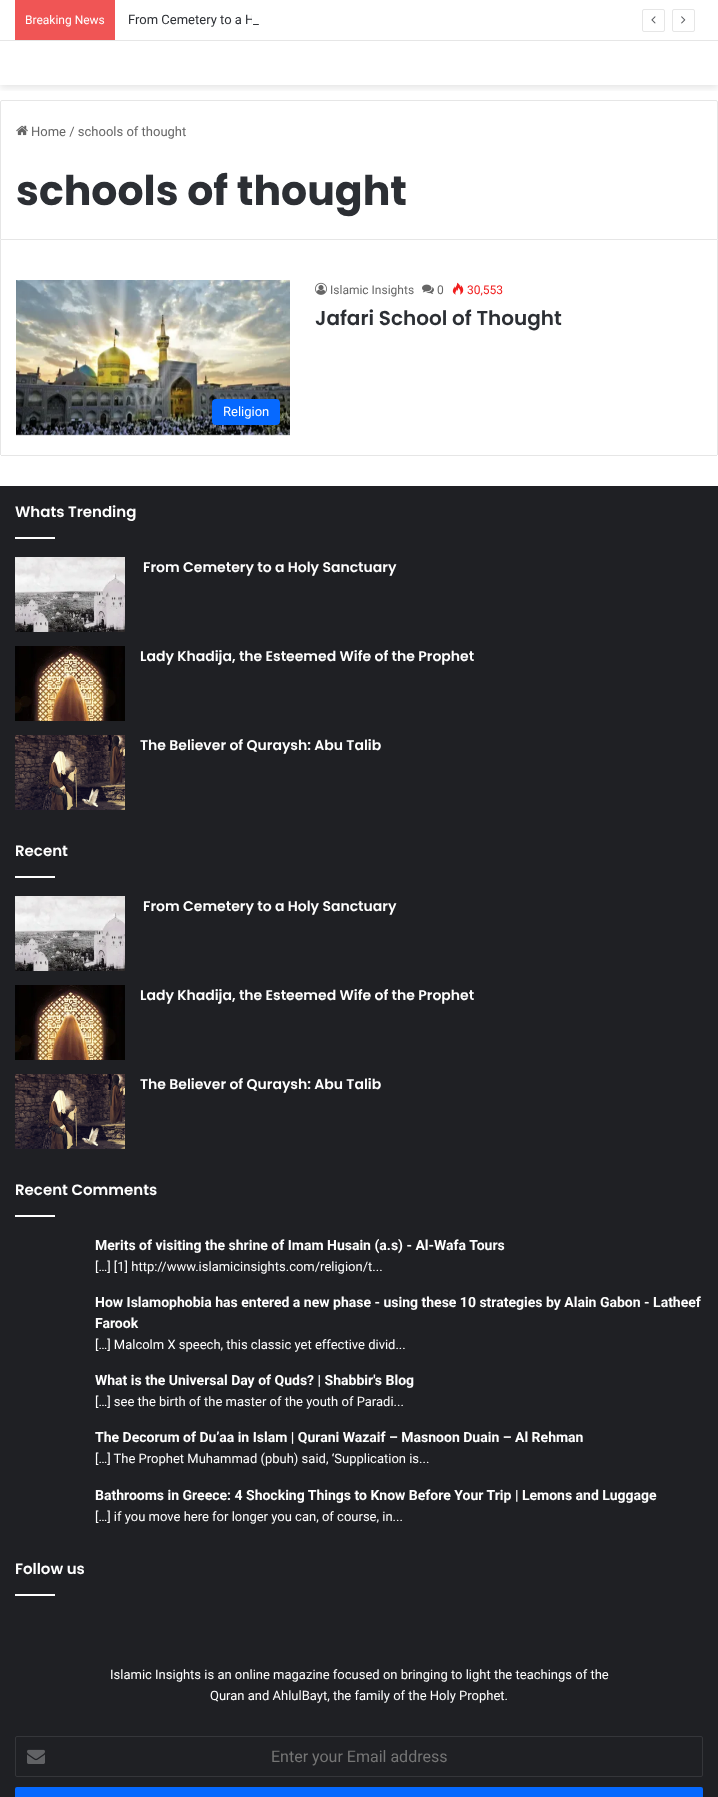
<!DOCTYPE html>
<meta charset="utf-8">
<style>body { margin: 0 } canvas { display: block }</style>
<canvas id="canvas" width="718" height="1797"></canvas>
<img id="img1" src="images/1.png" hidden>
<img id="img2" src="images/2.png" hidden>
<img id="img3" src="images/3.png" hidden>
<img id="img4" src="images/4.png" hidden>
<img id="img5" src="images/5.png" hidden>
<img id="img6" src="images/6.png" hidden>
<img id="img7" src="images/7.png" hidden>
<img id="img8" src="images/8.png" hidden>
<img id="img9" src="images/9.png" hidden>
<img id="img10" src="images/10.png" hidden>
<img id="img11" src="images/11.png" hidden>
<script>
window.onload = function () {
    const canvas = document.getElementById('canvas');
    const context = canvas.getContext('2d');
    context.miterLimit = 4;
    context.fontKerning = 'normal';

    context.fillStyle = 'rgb(255, 255, 255)';
    context.fillRect(0, 0, 718, 1797);
    context.save();
    context.beginPath();
    context.rect(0, 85, 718, 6);
    context.clip();
    context.fillStyle = 'rgba(0, 0, 0, 0.1)';
    context.filter = 'blur(3.5px)';
    context.beginPath();
    context.rect(0, 44, 718, 44);
    context.fill();
    context.filter = 'none';
    context.restore();
    context.fillStyle = 'rgb(230, 230, 230)';
    context.fillRect(0, 40, 718, 1);
    context.fillStyle = 'rgb(240, 85, 85)';
    context.fillRect(15, 0, 100, 40);
    context.beginPath();
    context.roundRect(642.5, 9.5, 22, 22, 1.5);
    context.strokeStyle = 'rgb(230, 230, 230)';
    context.stroke();
    context.drawImage(document.getElementById('img1'), 651, 16, 5, 8);
    context.beginPath();
    context.roundRect(672.5, 9.5, 22, 22, 1.5);
    context.stroke();
    context.drawImage(document.getElementById('img2'), 681, 16, 5, 8);
    context.beginPath();
    context.roundRect(0.5, 100.5, 717, 139, [1.5, 1.5, 0, 0]);
    context.stroke();
    context.drawImage(document.getElementById('img3'), 16, 125, 12, 11);
    context.fillStyle = 'rgb(230, 230, 230)';
    context.fillRect(717, 240, 1, 215);
    context.fillRect(1, 455, 716, 1);
    context.fillRect(0, 240, 1, 215);
    context.drawImage(document.getElementById('img4'), 315, 282, 12, 13);
    context.drawImage(document.getElementById('img5'), 422, 284, 12, 10);
    context.drawImage(document.getElementById('img6'), 452, 282, 12, 13);
    context.drawImage(document.getElementById('img7'), 16, 280, 274, 156);
    context.fillStyle = 'rgb(6, 105, 255)';
    context.beginPath();
    context.roundRect(212, 399, 68, 26, 4);
    context.fill();
    context.fillStyle = 'rgb(31, 32, 36)';
    context.fillRect(0, 486, 718, 1311);
    context.fillStyle = 'rgb(255, 255, 255)';
    context.fillRect(15, 537, 40, 2);
    context.drawImage(document.getElementById('img8'), 15, 557, 110, 75);
    context.drawImage(document.getElementById('img9'), 15, 646, 110, 75);
    context.drawImage(document.getElementById('img10'), 15, 735, 110, 75);
    context.fillRect(15, 876, 40, 2);
    context.drawImage(document.getElementById('img8'), 15, 896, 110, 75);
    context.drawImage(document.getElementById('img9'), 15, 985, 110, 75);
    context.drawImage(document.getElementById('img10'), 15, 1074, 110, 75);
    context.fillRect(15, 1215, 40, 2);
    context.fillRect(15, 1594, 40, 2);
    context.beginPath();
    context.roundRect(15.5, 1736.5, 687, 40, 1.5);
    context.strokeStyle = 'rgb(53, 54, 58)';
    context.stroke();
    context.drawImage(document.getElementById('img11'), 27, 1749, 18, 15);
    context.fillStyle = 'rgb(6, 105, 255)';
    context.beginPath();
    context.roundRect(15, 1787, 688, 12, 2);
    context.fill();
    context.font = '12px Roboto';
    context.fillStyle = 'rgb(255, 255, 255)';
    context.fillText('Breaking News', 25, 24);
    context.font = '13px Roboto';
    context.fillStyle = 'rgb(44, 47, 52)';
    context.fillText('From Cemetery to a H', 128, 24);
    context.fillStyle = 'rgb(255, 255, 255)';
    context.fillRect(252, 14, 2, 10);
    context.fillStyle = 'rgb(44, 47, 52)';
    context.fillText('_', 253, 24);
    context.fillStyle = 'rgb(102, 102, 102)';
    context.fillText('Home / schools of thought', 31, 136);
    context.font = 'bold 41px Poppins';
    context.fillStyle = 'rgb(44, 47, 52)';
    context.fillText('schools of thought', 16, 205);
    context.font = '12px Roboto';
    context.fillStyle = 'rgb(102, 102, 102)';
    context.fillText('Islamic Insights', 330, 294);
    context.fillText('0', 437, 294);
    context.fillStyle = 'rgb(241, 30, 30)';
    context.fillText('30,553', 467, 294);
    context.font = '600 20px Poppins';
    context.fillStyle = 'rgb(44, 47, 52)';
    context.fillText('Jafari School of Thought', 315, 325);
    context.font = '13px Roboto';
    context.fillStyle = 'rgb(255, 255, 255)';
    context.fillText('Religion', 223, 416);
    context.font = '600 15px Poppins';
    context.fillText('Whats Trending', 15, 517);
    context.font = '600 14px Poppins';
    context.fillText('From Cemetery to a Holy Sanctuary', 143, 572);
    context.fillText('Lady Khadija, the Esteemed Wife of the Prophet', 140, 661);
    context.fillText('The Believer of Quraysh: Abu Talib', 140, 750);
    context.font = '600 15px Poppins';
    context.fillText('Recent', 15, 856);
    context.font = '600 14px Poppins';
    context.fillText('From Cemetery to a Holy Sanctuary', 143, 911);
    context.fillText('Lady Khadija, the Esteemed Wife of the Prophet', 140, 1000);
    context.fillText('The Believer of Quraysh: Abu Talib', 140, 1089);
    context.font = '600 15px Poppins';
    context.fillText('Recent Comments', 15, 1195);
    context.font = 'bold 14px Roboto';
    context.fillText('Merits of visiting the shrine of Imam Husain (a.s) - Al-Wafa Tours', 95, 1250);
    context.font = '13px Roboto';
    context.fillText('[…] [1] http://www.islamicinsights.com/religion/t...', 95, 1271);
    context.font = 'bold 14px Roboto';
    context.fillText('How Islamophobia has entered a new phase - using these 10 strategies by Alain Gabon - Latheef', 95, 1307);
    context.fillText('Farook', 95, 1328);
    context.font = '13px Roboto';
    context.fillText('[…] Malcolm X speech, this classic yet effective divid...', 95, 1349);
    context.font = 'bold 14px Roboto';
    context.fillText('What is the Universal Day of Quds? | Shabbir\'s Blog', 95, 1385);
    context.font = '13px Roboto';
    context.fillText('[…] see the birth of the master of the youth of Paradi...', 95, 1406);
    context.font = 'bold 14px Roboto';
    context.fillText('The Decorum of Du’aa in Islam | Qurani Wazaif – Masnoon Duain – Al Rehman', 95, 1442);
    context.font = '13px Roboto';
    context.fillText('[…] The Prophet Muhammad (pbuh) said, ‘Supplication is...', 95, 1463);
    context.font = 'bold 14px Roboto';
    context.fillText('Bathrooms in Greece: 4 Shocking Things to Know Before Your Trip | Lemons and Luggage', 95, 1500);
    context.font = '13px Roboto';
    context.fillText('[…] if you move here for longer you can, of course, in...', 95, 1521);
    context.font = '600 15px Poppins';
    context.fillText('Follow us', 15, 1574);
    context.font = '13px Roboto';
    context.fillText('Islamic Insights is an online magazine focused on bringing to light the teachings of the', 110, 1679);
    context.fillText('Quran and AhlulBayt, the family of the Holy Prophet.', 210, 1700);
    context.font = '16px Roboto';
    context.fillStyle = 'rgb(117, 117, 117)';
    context.fillText('Enter your Email address', 271, 1762);
};
</script>
